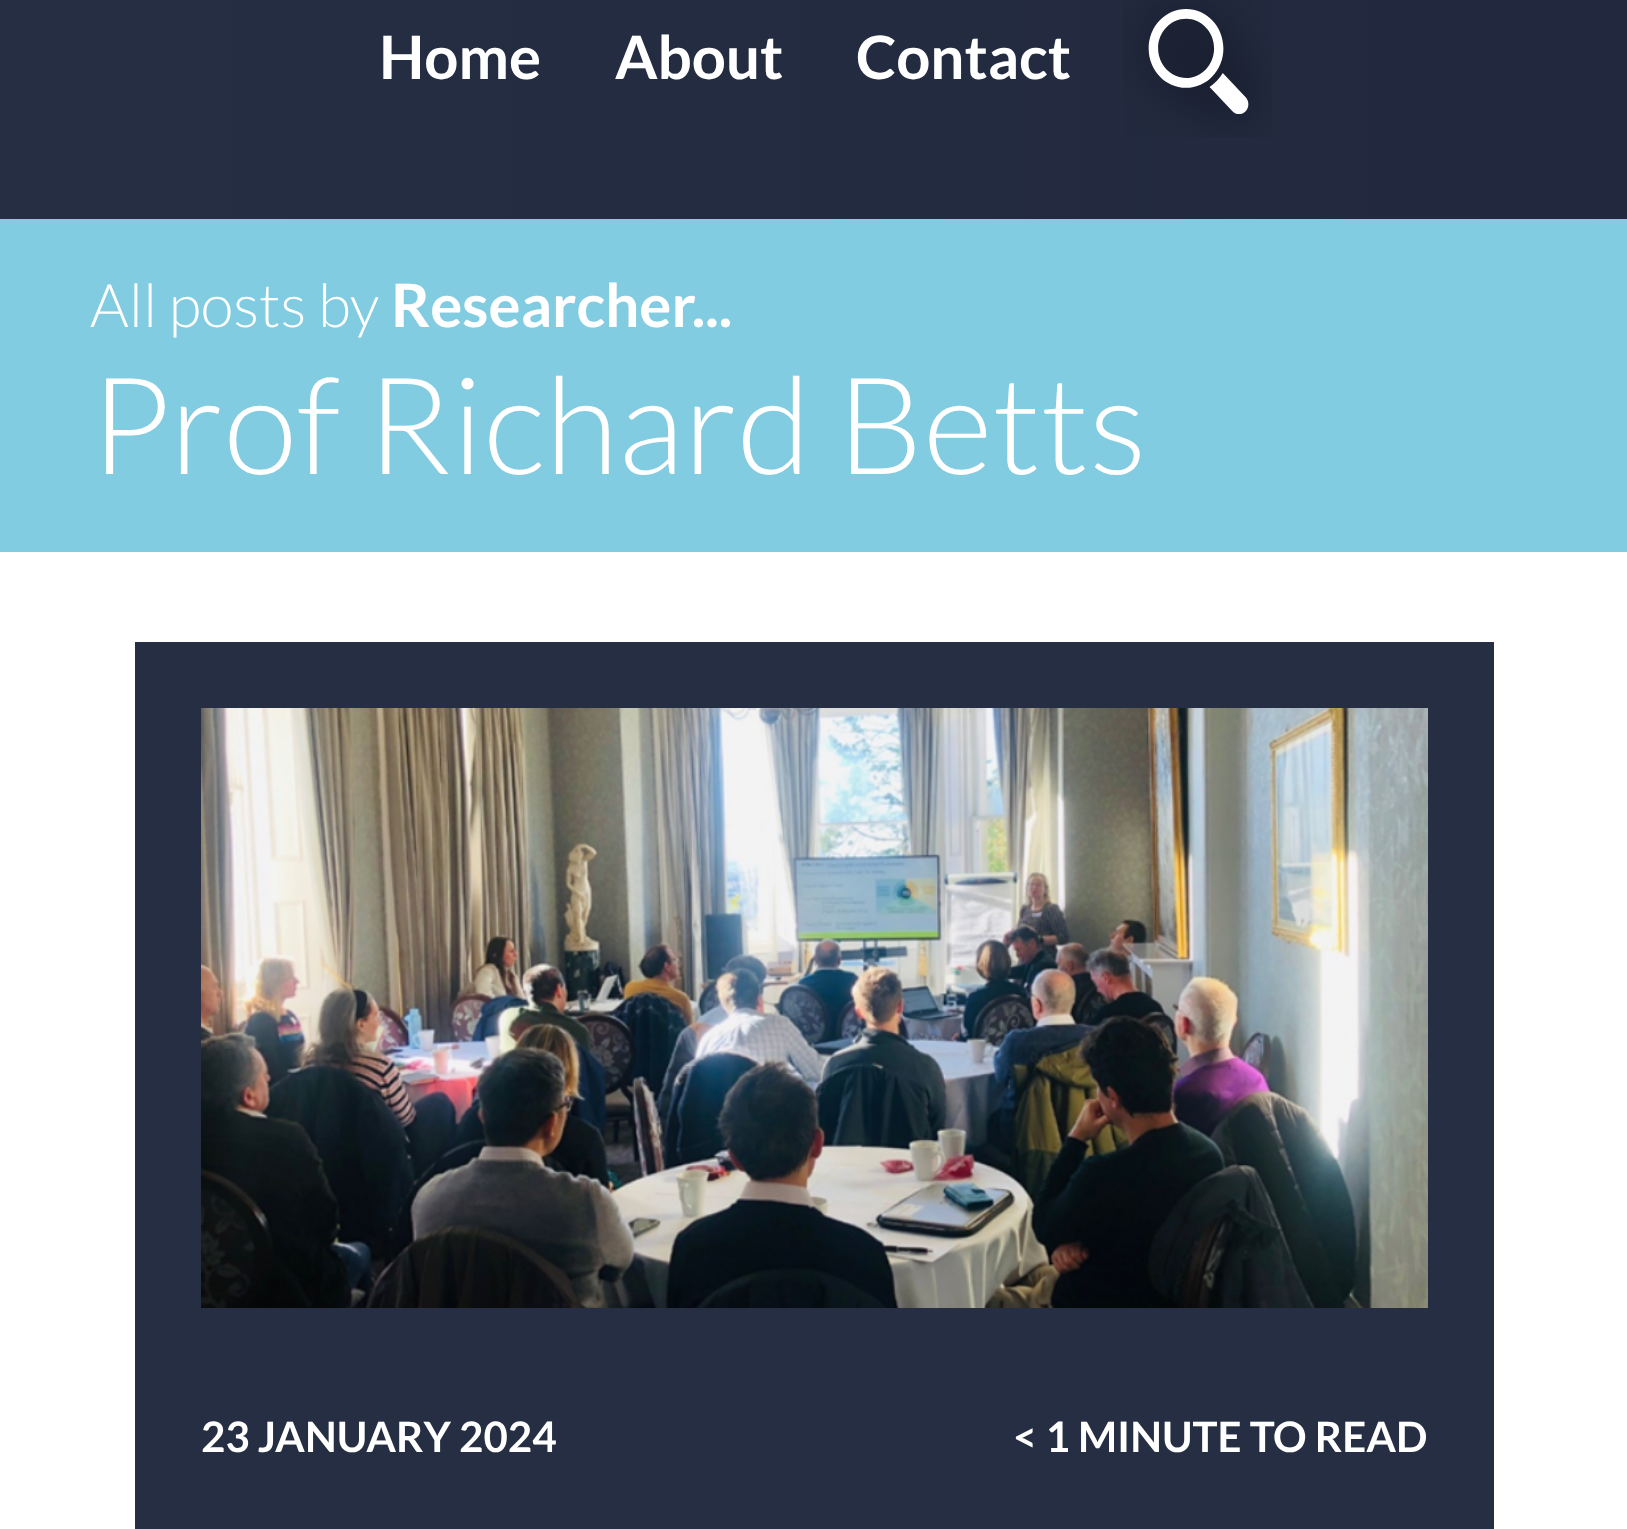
<!DOCTYPE html>
<meta charset="utf-8">
<style>body { margin: 0 } canvas { display: block }</style>
<canvas id="canvas" width="1627" height="1529"></canvas>
<img id="img1" src="images/1.png" hidden>
<img id="img2" src="images/2.png" hidden>
<script>
window.onload = function () {
    const canvas = document.getElementById('canvas');
    const context = canvas.getContext('2d');
    context.miterLimit = 4;
    context.fontKerning = 'normal';
    let gradient;

    context.fillStyle = 'rgb(255, 255, 255)';
    context.fillRect(0, 0, 1627, 1529);
    gradient = context.createLinearGradient(0, -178, 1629, -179);
    gradient.addColorStop(0, 'rgb(37, 46, 66)');
    gradient.addColorStop(1, 'rgb(34, 41, 63)');
    context.fillStyle = gradient;
    context.fillRect(0, 0, 1627, 219);
    context.drawImage(document.getElementById('img1'), 1123, 0, 149, 137);
    context.fillStyle = 'rgb(129, 204, 224)';
    context.fillRect(0, 219, 1627, 333);
    context.fillStyle = 'rgb(37, 46, 66)';
    context.fillRect(135, 642, 1359, 887);
    context.drawImage(document.getElementById('img2'), 201, 708, 1227, 600);
    context.font = 'bold 60px Lato';
    context.fillStyle = 'rgb(255, 255, 255)';
    context.fillText('Home', 379, 79);
    context.fillText('About', 615, 79);
    context.fillText('Contact', 856, 79);
    context.font = '300 60px Lato';
    context.fillText('All posts by', 90, 327);
    context.font = 'bold 60px Lato';
    context.fillText('Researcher...', 391, 327);
    context.font = '300 135px Lato';
    context.fillText('Prof Richard Betts', 90, 474);
    context.font = 'bold 42px Lato';
    context.fillText('23 JANUARY 2024', 201, 1452);
    context.fillText('< 1 MINUTE TO READ', 1013, 1452);
};
</script>
